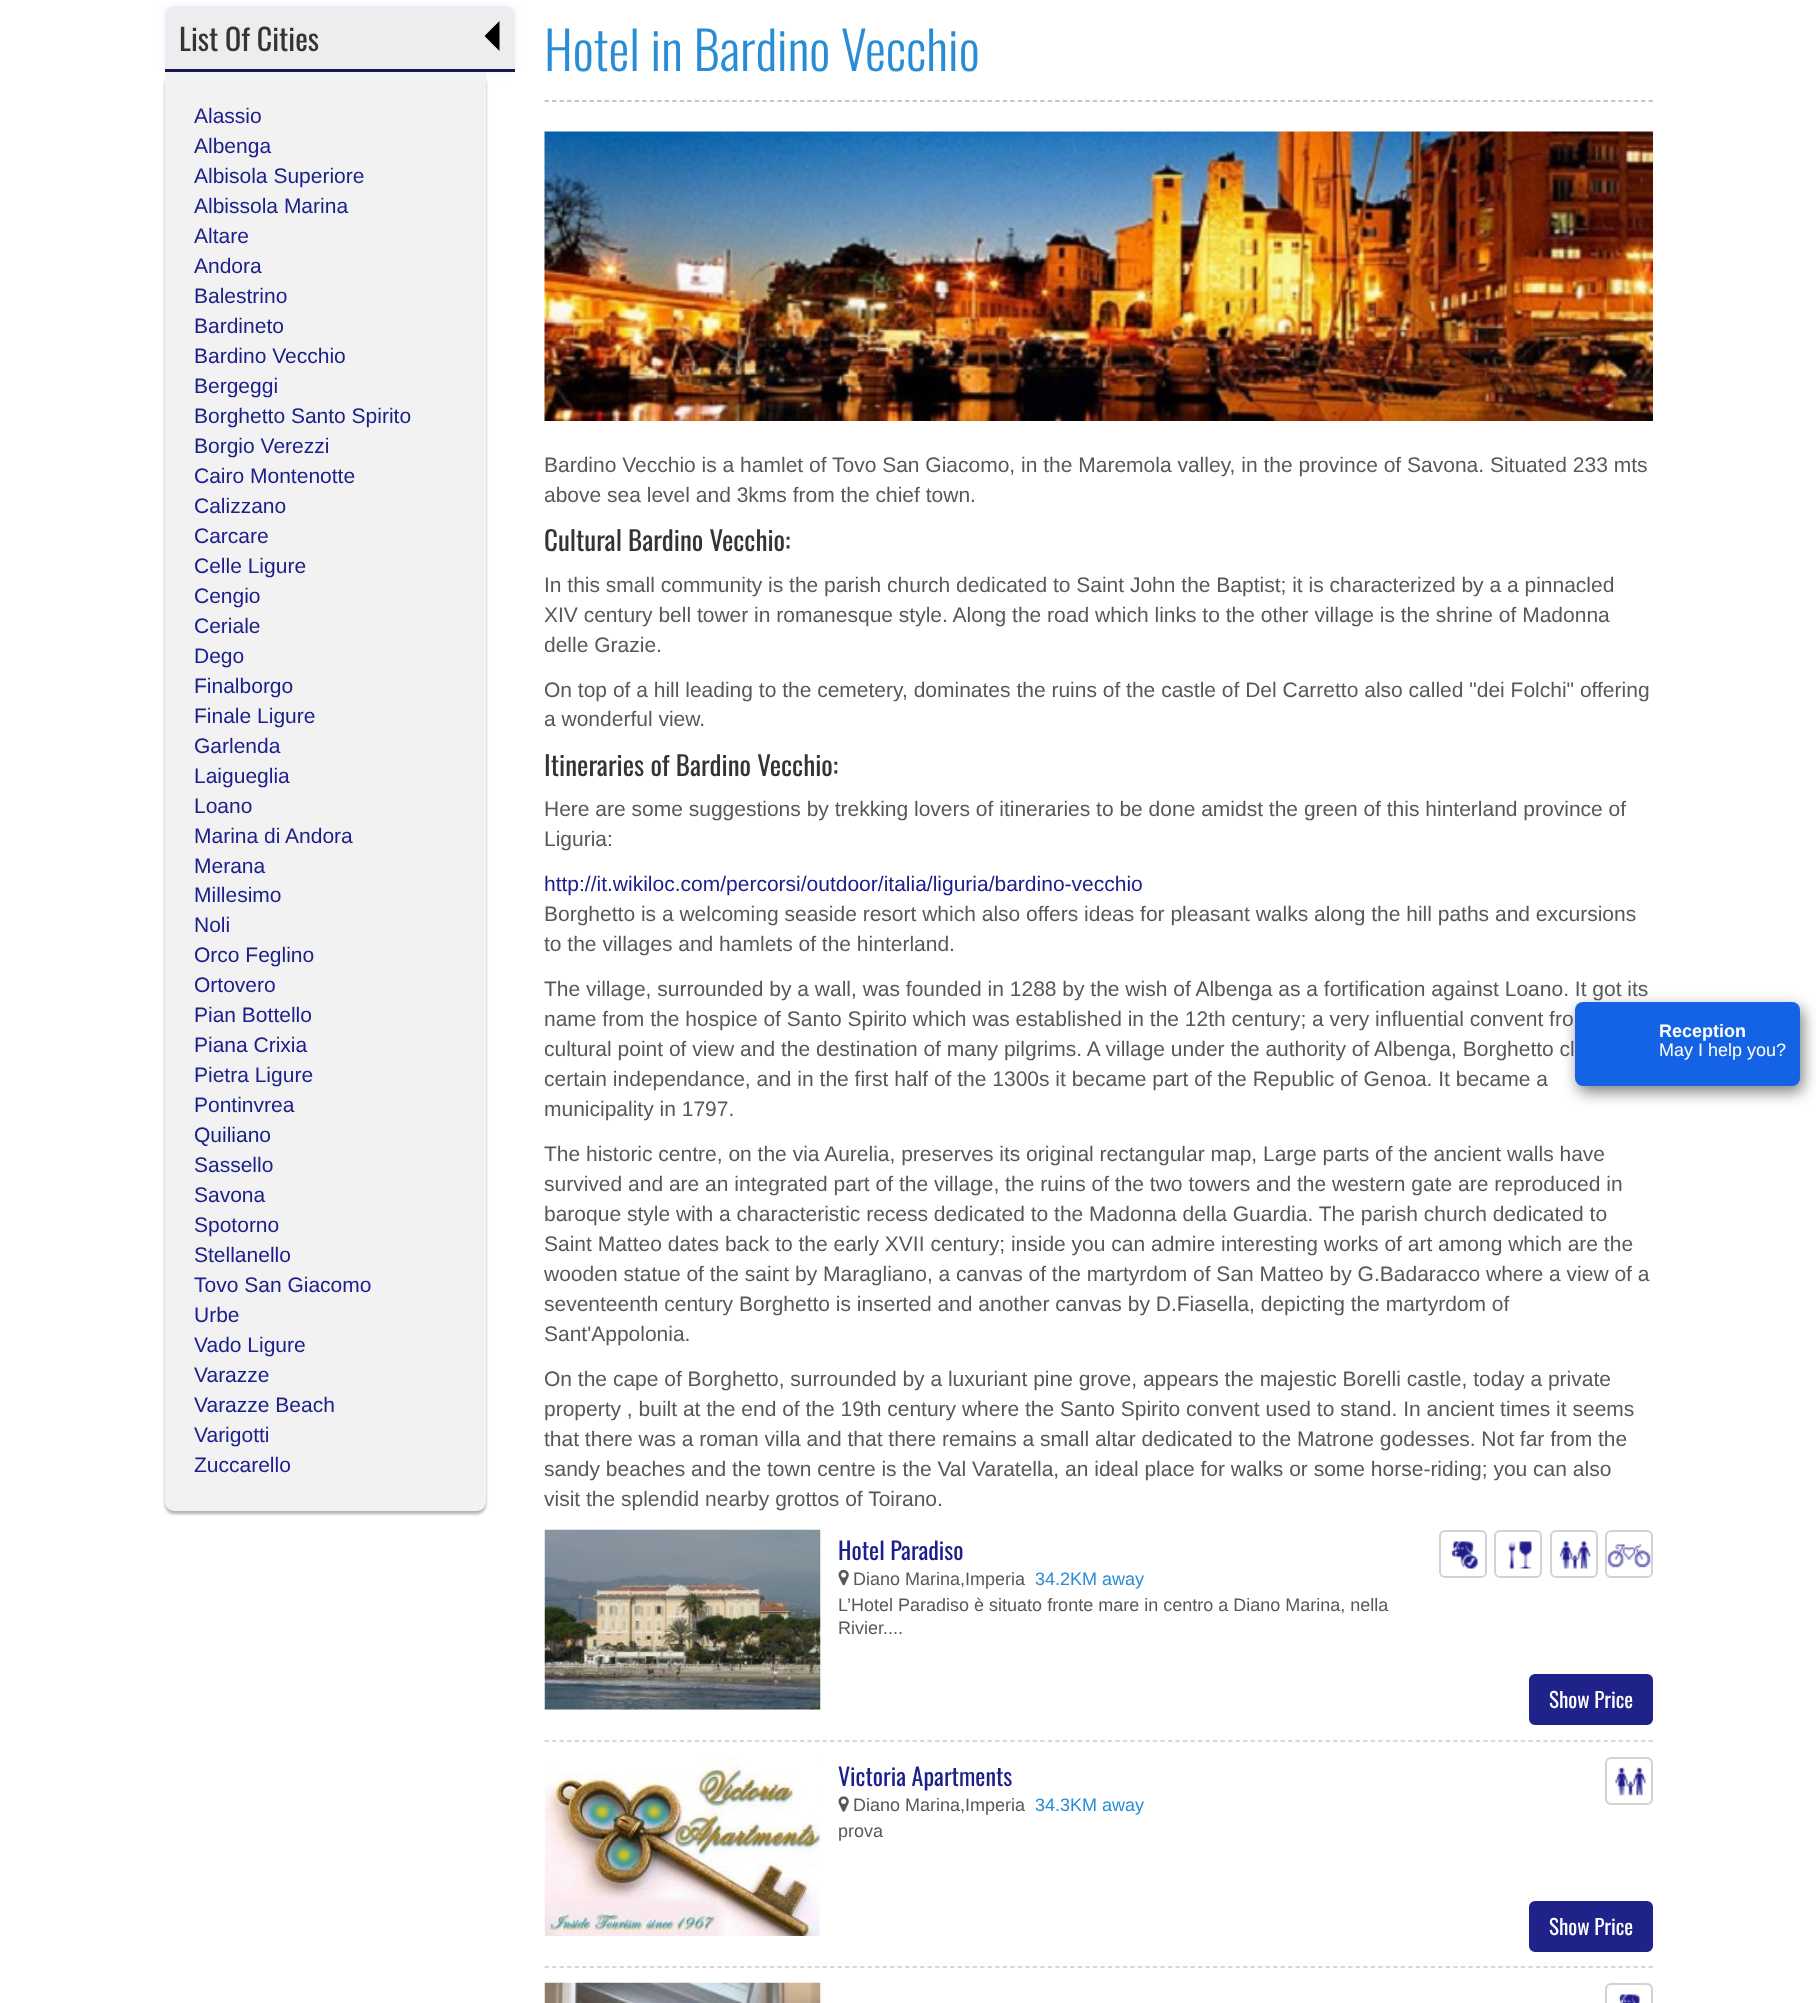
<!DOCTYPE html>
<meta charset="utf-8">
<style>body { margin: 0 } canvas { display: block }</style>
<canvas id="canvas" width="1816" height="2003"></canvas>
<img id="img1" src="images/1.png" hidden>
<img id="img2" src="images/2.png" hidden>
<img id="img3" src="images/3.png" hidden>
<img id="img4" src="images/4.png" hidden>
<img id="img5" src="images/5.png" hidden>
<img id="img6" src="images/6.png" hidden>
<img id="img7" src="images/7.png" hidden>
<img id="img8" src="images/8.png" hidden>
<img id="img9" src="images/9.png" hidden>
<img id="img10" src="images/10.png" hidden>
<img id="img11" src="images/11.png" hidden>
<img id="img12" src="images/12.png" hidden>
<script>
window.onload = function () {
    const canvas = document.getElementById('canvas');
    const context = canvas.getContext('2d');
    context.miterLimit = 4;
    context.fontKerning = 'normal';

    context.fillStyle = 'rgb(255, 255, 255)';
    context.fillRect(0, 0, 1816, 2003);
    context.fillStyle = 'rgb(238, 238, 255)';
    context.filter = 'blur(4px)';
    context.beginPath();
    context.roundRect(165, 6, 350, 66, 9);
    context.fill();
    context.filter = 'none';
    context.fillStyle = 'rgb(237, 237, 240)';
    context.beginPath();
    context.roundRect(165, 6, 350, 66, [9, 9, 0, 0]);
    context.fill();
    context.fillStyle = 'rgb(19, 23, 86)';
    context.fillRect(165, 69, 350, 3);
    context.fillStyle = 'rgb(0, 0, 0)';
    context.beginPath();
    context.moveTo(499.5, 21);
    context.lineTo(499.5, 51);
    context.lineTo(484.5, 36);
    context.closePath();
    context.fill();
    context.fillStyle = 'rgba(0, 0, 0, 0.3)';
    context.filter = 'blur(1.5px)';
    context.beginPath();
    context.roundRect(165, 75, 321, 1439, 9);
    context.fill();
    context.filter = 'none';
    context.fillStyle = 'rgb(242, 242, 242)';
    context.beginPath();
    context.roundRect(165, 72, 321, 1439, [0, 0, 9, 9]);
    context.fill();
    context.beginPath();
    context.moveTo(544.5, 101);
    context.lineTo(1653, 101);
    context.strokeStyle = 'rgb(182, 179, 191)';
    context.lineWidth = 1.5;
    context.setLineDash([4.5, 3.01]);
    context.stroke();
    context.drawImage(document.getElementById('img1'), 544, 131, 1109, 290);
    context.beginPath();
    context.moveTo(544.5, 1741);
    context.lineTo(1653, 1741);
    context.strokeStyle = 'rgb(204, 204, 204)';
    context.stroke();
    context.drawImage(document.getElementById('img2'), 544, 1529, 277, 181);
    context.drawImage(document.getElementById('img3'), 838, 1569, 11, 17);
    context.drawImage(document.getElementById('img4'), 1451, 1541, 27, 28);
    context.beginPath();
    context.roundRect(1440, 1531, 46, 46, 5);
    context.strokeStyle = 'rgb(210, 210, 210)';
    context.lineWidth = 2;
    context.setLineDash([]);
    context.stroke();
    context.drawImage(document.getElementById('img5'), 1508, 1541, 24, 28);
    context.beginPath();
    context.roundRect(1495, 1531, 46, 46, 5);
    context.stroke();
    context.drawImage(document.getElementById('img6'), 1559, 1541, 32, 28);
    context.beginPath();
    context.roundRect(1551, 1531, 46, 46, 5);
    context.stroke();
    context.drawImage(document.getElementById('img7'), 1607, 1544, 44, 24);
    context.beginPath();
    context.roundRect(1606, 1531, 46, 46, 5);
    context.stroke();
    context.fillStyle = 'rgb(31, 34, 137)';
    context.beginPath();
    context.roundRect(1530, 1675, 122, 49, 5);
    context.fill();
    context.strokeStyle = 'rgb(31, 34, 137)';
    context.stroke();
    context.beginPath();
    context.moveTo(544.5, 1967);
    context.lineTo(1653, 1967);
    context.strokeStyle = 'rgb(204, 204, 204)';
    context.lineWidth = 1.5;
    context.setLineDash([4.5, 3.01]);
    context.stroke();
    context.drawImage(document.getElementById('img8'), 544, 1756, 277, 180);
    context.drawImage(document.getElementById('img9'), 838, 1796, 11, 16);
    context.drawImage(document.getElementById('img10'), 1615, 1767, 31, 29);
    context.beginPath();
    context.roundRect(1606, 1758, 46, 46, 5);
    context.strokeStyle = 'rgb(210, 210, 210)';
    context.lineWidth = 2;
    context.setLineDash([]);
    context.stroke();
    context.beginPath();
    context.roundRect(1530, 1902, 122, 49, 5);
    context.fill();
    context.strokeStyle = 'rgb(31, 34, 137)';
    context.stroke();
    context.drawImage(document.getElementById('img11'), 544, 1982, 277, 21);
    context.drawImage(document.getElementById('img12'), 1618, 1994, 22, 9);
    context.beginPath();
    context.roundRect(1606, 1984, 46, 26, 5);
    context.strokeStyle = 'rgb(210, 210, 210)';
    context.stroke();
    context.fillStyle = 'rgba(0, 0, 0, 0.5)';
    context.filter = 'blur(7.5px)';
    context.beginPath();
    context.roundRect(1578, 1008, 225, 84, 8);
    context.fill();
    context.filter = 'none';
    context.fillStyle = 'rgb(20, 99, 228)';
    context.beginPath();
    context.roundRect(1575, 1002, 225, 84, 8);
    context.fill();
    context.font = '30px Oswald';
    context.fillStyle = 'rgb(52, 52, 52)';
    context.fillText('List Of Cities', 179, 51);
    context.font = '21px Liberation Sans';
    context.fillStyle = 'rgb(29, 32, 139)';
    context.fillText('Alassio', 194, 123);
    context.fillText('Albenga', 194, 153);
    context.fillText('Albisola Superiore', 194, 183);
    context.fillText('Albissola Marina', 194, 213);
    context.fillText('Altare', 194, 243);
    context.fillText('Andora', 194, 273);
    context.fillText('Balestrino', 194, 303);
    context.fillText('Bardineto', 194, 333);
    context.fillText('Bardino Vecchio', 194, 363);
    context.fillText('Bergeggi', 194, 393);
    context.fillText('Borghetto Santo Spirito', 194, 423);
    context.fillText('Borgio Verezzi', 194, 453);
    context.fillText('Cairo Montenotte', 194, 483);
    context.fillText('Calizzano', 194, 513);
    context.fillText('Carcare', 194, 543);
    context.fillText('Celle Ligure', 194, 573);
    context.fillText('Cengio', 194, 603);
    context.fillText('Ceriale', 194, 633);
    context.fillText('Dego', 194, 663);
    context.fillText('Finalborgo', 194, 693);
    context.fillText('Finale Ligure', 194, 723);
    context.fillText('Garlenda', 194, 753);
    context.fillText('Laigueglia', 194, 783);
    context.fillText('Loano', 194, 813);
    context.fillText('Marina di Andora', 194, 843);
    context.fillText('Merana', 194, 873);
    context.fillText('Millesimo', 194, 902);
    context.fillText('Noli', 194, 932);
    context.fillText('Orco Feglino', 194, 962);
    context.fillText('Ortovero', 194, 992);
    context.fillText('Pian Bottello', 194, 1022);
    context.fillText('Piana Crixia', 194, 1052);
    context.fillText('Pietra Ligure', 194, 1082);
    context.fillText('Pontinvrea', 194, 1112);
    context.fillText('Quiliano', 194, 1142);
    context.fillText('Sassello', 194, 1172);
    context.fillText('Savona', 194, 1202);
    context.fillText('Spotorno', 194, 1232);
    context.fillText('Stellanello', 194, 1262);
    context.fillText('Tovo San Giacomo', 194, 1292);
    context.fillText('Urbe', 194, 1322);
    context.fillText('Vado Ligure', 194, 1352);
    context.fillText('Varazze', 194, 1382);
    context.fillText('Varazze Beach', 194, 1412);
    context.fillText('Varigotti', 194, 1442);
    context.fillText('Zuccarello', 194, 1472);
    context.font = '300 52.5px Oswald';
    context.fillStyle = 'rgb(41, 141, 214)';
    context.fillText('Hotel in Bardino Vecchio', 544, 71);
    context.font = '21px Liberation Sans';
    context.fillStyle = 'rgb(88, 88, 88)';
    context.fillText('Bardino Vecchio is a hamlet of Tovo San Giacomo, in the Maremola valley, in the province of Savona. Situated 233 mts', 544, 472);
    context.fillText('above sea level and 3kms from the chief town.', 544, 502);
    context.font = '27px Oswald';
    context.fillStyle = 'rgb(52, 52, 52)';
    context.fillText('Cultural Bardino Vecchio:', 544, 551);
    context.font = '21px Liberation Sans';
    context.fillStyle = 'rgb(88, 88, 88)';
    context.fillText('In this small community is the parish church dedicated to Saint John the Baptist; it is characterized by a a pinnacled', 544, 592);
    context.fillText('XIV century bell tower in romanesque style. Along the road which links to the other village is the shrine of Madonna', 544, 622);
    context.fillText('delle Grazie.', 544, 652);
    context.fillText('On top of a hill leading to the cemetery, dominates the ruins of the castle of Del Carretto also called "dei Folchi" offering', 544, 697);
    context.fillText('a wonderful view.', 544, 726);
    context.font = '27px Oswald';
    context.fillStyle = 'rgb(52, 52, 52)';
    context.fillText('Itineraries of Bardino Vecchio:', 544, 776);
    context.font = '21px Liberation Sans';
    context.fillStyle = 'rgb(88, 88, 88)';
    context.fillText('Here are some suggestions by trekking lovers of itineraries to be done amidst the green of this hinterland province of', 544, 816);
    context.fillText('Liguria:', 544, 846);
    context.fillStyle = 'rgb(29, 32, 139)';
    context.fillText('http://it.wikiloc.com/percorsi/outdoor/italia/liguria/bardino-vecchio', 544, 891);
    context.fillStyle = 'rgb(88, 88, 88)';
    context.fillText('Borghetto is a welcoming seaside resort which also offers ideas for pleasant walks along the hill paths and excursions', 544, 921);
    context.fillText('to the villages and hamlets of the hinterland.', 544, 951);
    context.fillText('The village, surrounded by a wall, was founded in 1288 by the wish of Albenga as a fortification against Loano. It got its', 544, 996);
    context.fillText('name from the hospice of Santo Spirito which was established in the 12th century; a very influential convent fro', 544, 1026);
    context.fillText('cultural point of view and the destination of many pilgrims. A village under the authority of Albenga, Borghetto cl', 544, 1056);
    context.fillText('certain independance, and in the first half of the 1300s it became part of the Republic of Genoa. It became a', 544, 1086);
    context.fillText('municipality in 1797.', 544, 1116);
    context.fillText('The historic centre, on the via Aurelia, preserves its original rectangular map, Large parts of the ancient walls have', 544, 1161);
    context.fillText('survived and are an integrated part of the village, the ruins of the two towers and the western gate are reproduced in', 544, 1191);
    context.fillText('baroque style with a characteristic recess dedicated to the Madonna della Guardia. The parish church dedicated to', 544, 1221);
    context.fillText('Saint Matteo dates back to the early XVII century; inside you can admire interesting works of art among which are the', 544, 1251);
    context.fillText('wooden statue of the saint by Maragliano, a canvas of the martyrdom of San Matteo by G.Badaracco where a view of a', 544, 1281);
    context.fillText('seventeenth century Borghetto is inserted and another canvas by D.Fiasella, depicting the martyrdom of', 544, 1311);
    context.fillText('Sant\'Appolonia.', 544, 1341);
    context.fillText('On the cape of Borghetto, surrounded by a luxuriant pine grove, appears the majestic Borelli castle, today a private', 544, 1386);
    context.fillText('property , built at the end of the 19th century where the Santo Spirito convent used to stand. In ancient times it seems', 544, 1416);
    context.fillText('that there was a roman villa and that there remains a small altar dedicated to the Matrone godesses. Not far from the', 544, 1446);
    context.fillText('sandy beaches and the town centre is the Val Varatella, an ideal place for walks or some horse-riding; you can also', 544, 1476);
    context.fillText('visit the splendid nearby grottos of Toirano.', 544, 1506);
    context.font = '24px Oswald';
    context.fillStyle = 'rgb(29, 32, 139)';
    context.fillText('Hotel Paradiso', 838, 1560);
    context.font = '18px Liberation Sans';
    context.fillStyle = 'rgb(88, 88, 88)';
    context.fillText('Diano Marina,Imperia', 853, 1585);
    context.fillStyle = 'rgb(41, 141, 214)';
    context.fillText('34.2KM away', 1035, 1585);
    context.fillStyle = 'rgb(88, 88, 88)';
    context.fillText('L’Hotel Paradiso è situato fronte mare in centro a Diano Marina, nella', 838, 1611);
    context.fillText('Rivier....', 838, 1634);
    context.font = '21px Oswald';
    context.fillStyle = 'rgb(255, 255, 255)';
    context.fillText('Show Price', 1549, 1708);
    context.font = '24px Oswald';
    context.fillStyle = 'rgb(29, 32, 139)';
    context.fillText('Victoria Apartments', 838, 1786);
    context.font = '18px Liberation Sans';
    context.fillStyle = 'rgb(88, 88, 88)';
    context.fillText('Diano Marina,Imperia', 853, 1811);
    context.fillStyle = 'rgb(41, 141, 214)';
    context.fillText('34.3KM away', 1035, 1811);
    context.fillStyle = 'rgb(88, 88, 88)';
    context.fillText('prova', 838, 1837);
    context.font = '21px Oswald';
    context.fillStyle = 'rgb(255, 255, 255)';
    context.fillText('Show Price', 1549, 1935);
    context.font = 'bold 18px Liberation Sans';
    context.fillText('Reception', 1659, 1037);
    context.font = '18px Liberation Sans';
    context.fillText('May I help you?', 1659, 1056);
};
</script>
